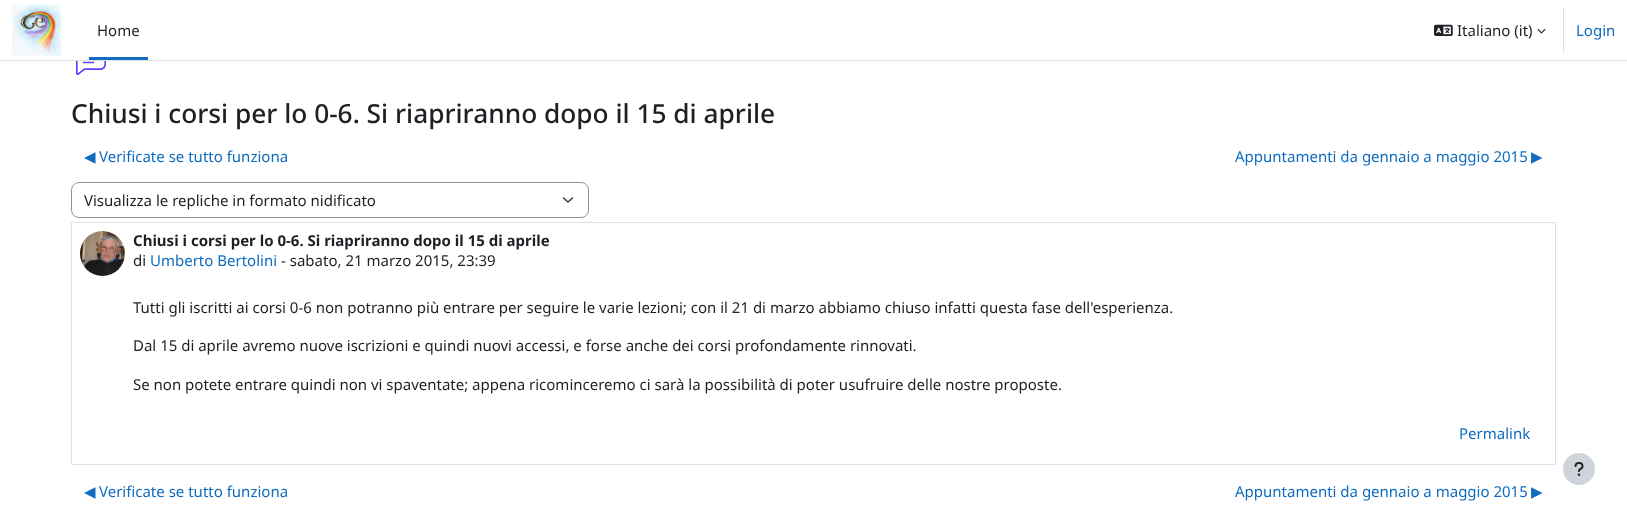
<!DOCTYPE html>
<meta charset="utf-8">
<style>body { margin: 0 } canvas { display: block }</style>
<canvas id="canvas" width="1627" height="517"></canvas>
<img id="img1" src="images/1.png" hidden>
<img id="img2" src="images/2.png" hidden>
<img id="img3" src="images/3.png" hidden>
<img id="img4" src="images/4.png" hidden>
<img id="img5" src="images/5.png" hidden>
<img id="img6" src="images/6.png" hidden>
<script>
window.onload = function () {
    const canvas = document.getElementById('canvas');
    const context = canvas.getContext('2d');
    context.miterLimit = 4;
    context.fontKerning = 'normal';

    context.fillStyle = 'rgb(255, 255, 255)';
    context.fillRect(0, 0, 1627, 517);
    context.fillStyle = 'rgb(222, 226, 230)';
    context.fillRect(0, 60, 1627, 1);
    context.drawImage(document.getElementById('img1'), 12, 4, 50, 52);
    context.fillStyle = 'rgb(15, 108, 191)';
    context.fillRect(89, 57, 59, 3);
    context.drawImage(document.getElementById('img2'), 1434, 24, 19, 12);
    context.drawImage(document.getElementById('img3'), 1537, 29, 9, 5);
    context.fillStyle = 'rgb(222, 226, 230)';
    context.fillRect(1563, 8, 1, 45);
    context.drawImage(document.getElementById('img4'), 76, 61, 30, 14);
    context.beginPath();
    context.moveTo(563.5, 198);
    context.lineTo(568, 202);
    context.lineTo(572.5, 198);
    context.strokeStyle = 'rgb(52, 58, 64)';
    context.lineWidth = 1.5;
    context.lineCap = 'round';
    context.lineJoin = 'round';
    context.stroke();
    context.beginPath();
    context.roundRect(71.5, 182.5, 517, 35, 7.5);
    context.strokeStyle = 'rgb(143, 149, 158)';
    context.lineWidth = 1;
    context.lineJoin = 'miter';
    context.stroke();
    context.strokeStyle = 'rgb(222, 226, 230)';
    context.strokeRect(71.5, 222.5, 1484, 242);
    context.drawImage(document.getElementById('img5'), 80, 231, 45, 45);
    context.fillStyle = 'rgb(206, 212, 218)';
    context.beginPath();
    context.arc(1579, 469, 16, 0, 2 * Math.PI);
    context.fill();
    context.drawImage(document.getElementById('img6'), 1574, 462, 10, 14);
    context.font = '15px Noto Sans';
    context.fillStyle = 'rgb(29, 33, 37)';
    context.fillText('Home', 97, 36);
    context.fillText('Italiano (it)', 1457, 36);
    context.fillStyle = 'rgb(15, 108, 191)';
    context.fillText('Login', 1576, 36);
    context.font = '500 26.25px Noto Sans';
    context.fillStyle = 'rgb(29, 33, 37)';
    context.fillText('Chiusi i corsi per lo 0-6. Si riapriranno dopo il 15 di aprile', 71, 123);
    context.font = '15px DejaVu Sans';
    context.fillStyle = 'rgb(15, 108, 191)';
    context.fillText('◀︎', 84, 162);
    context.font = '15px Noto Sans';
    context.fillText('Verificate se tutto funziona', 99, 162);
    context.fillText('Appuntamenti da gennaio a maggio 2015', 1235, 162);
    context.font = '15px DejaVu Sans';
    context.fillText('▶︎', 1531, 162);
    context.font = '15px Noto Sans';
    context.fillStyle = 'rgb(29, 33, 37)';
    context.fillText('Visualizza le repliche in formato nidificato', 84, 206);
    context.font = 'bold 15px Noto Sans';
    context.fillText('Chiusi i corsi per lo 0-6. Si riapriranno dopo il 15 di aprile', 133, 246);
    context.font = '15px Noto Sans';
    context.fillText('di', 133, 266);
    context.fillStyle = 'rgb(15, 108, 191)';
    context.fillText('Umberto Bertolini', 150, 266);
    context.fillStyle = 'rgb(29, 33, 37)';
    context.fillText('- sabato, 21 marzo 2015, 23:39', 281, 266);
    context.fillText('Tutti gli iscritti ai corsi 0-6 non potranno più entrare per seguire le varie lezioni; con il 21 di marzo abbiamo chiuso infatti questa fase dell\'esperienza.', 133, 313);
    context.fillText('Dal 15 di aprile avremo nuove iscrizioni e quindi nuovi accessi, e forse anche dei corsi profondamente rinnovati.', 133, 351);
    context.fillText('Se non potete entrare quindi non vi spaventate; appena ricominceremo ci sarà la possibilità di poter usufruire delle nostre proposte.', 133, 390);
    context.fillStyle = 'rgb(15, 108, 191)';
    context.fillText('Permalink', 1459, 439);
    context.font = '15px DejaVu Sans';
    context.fillText('◀︎', 84, 497);
    context.font = '15px Noto Sans';
    context.fillText('Verificate se tutto funziona', 99, 497);
    context.fillText('Appuntamenti da gennaio a maggio 2015', 1235, 497);
    context.font = '15px DejaVu Sans';
    context.fillText('▶︎', 1531, 497);
};
</script>
